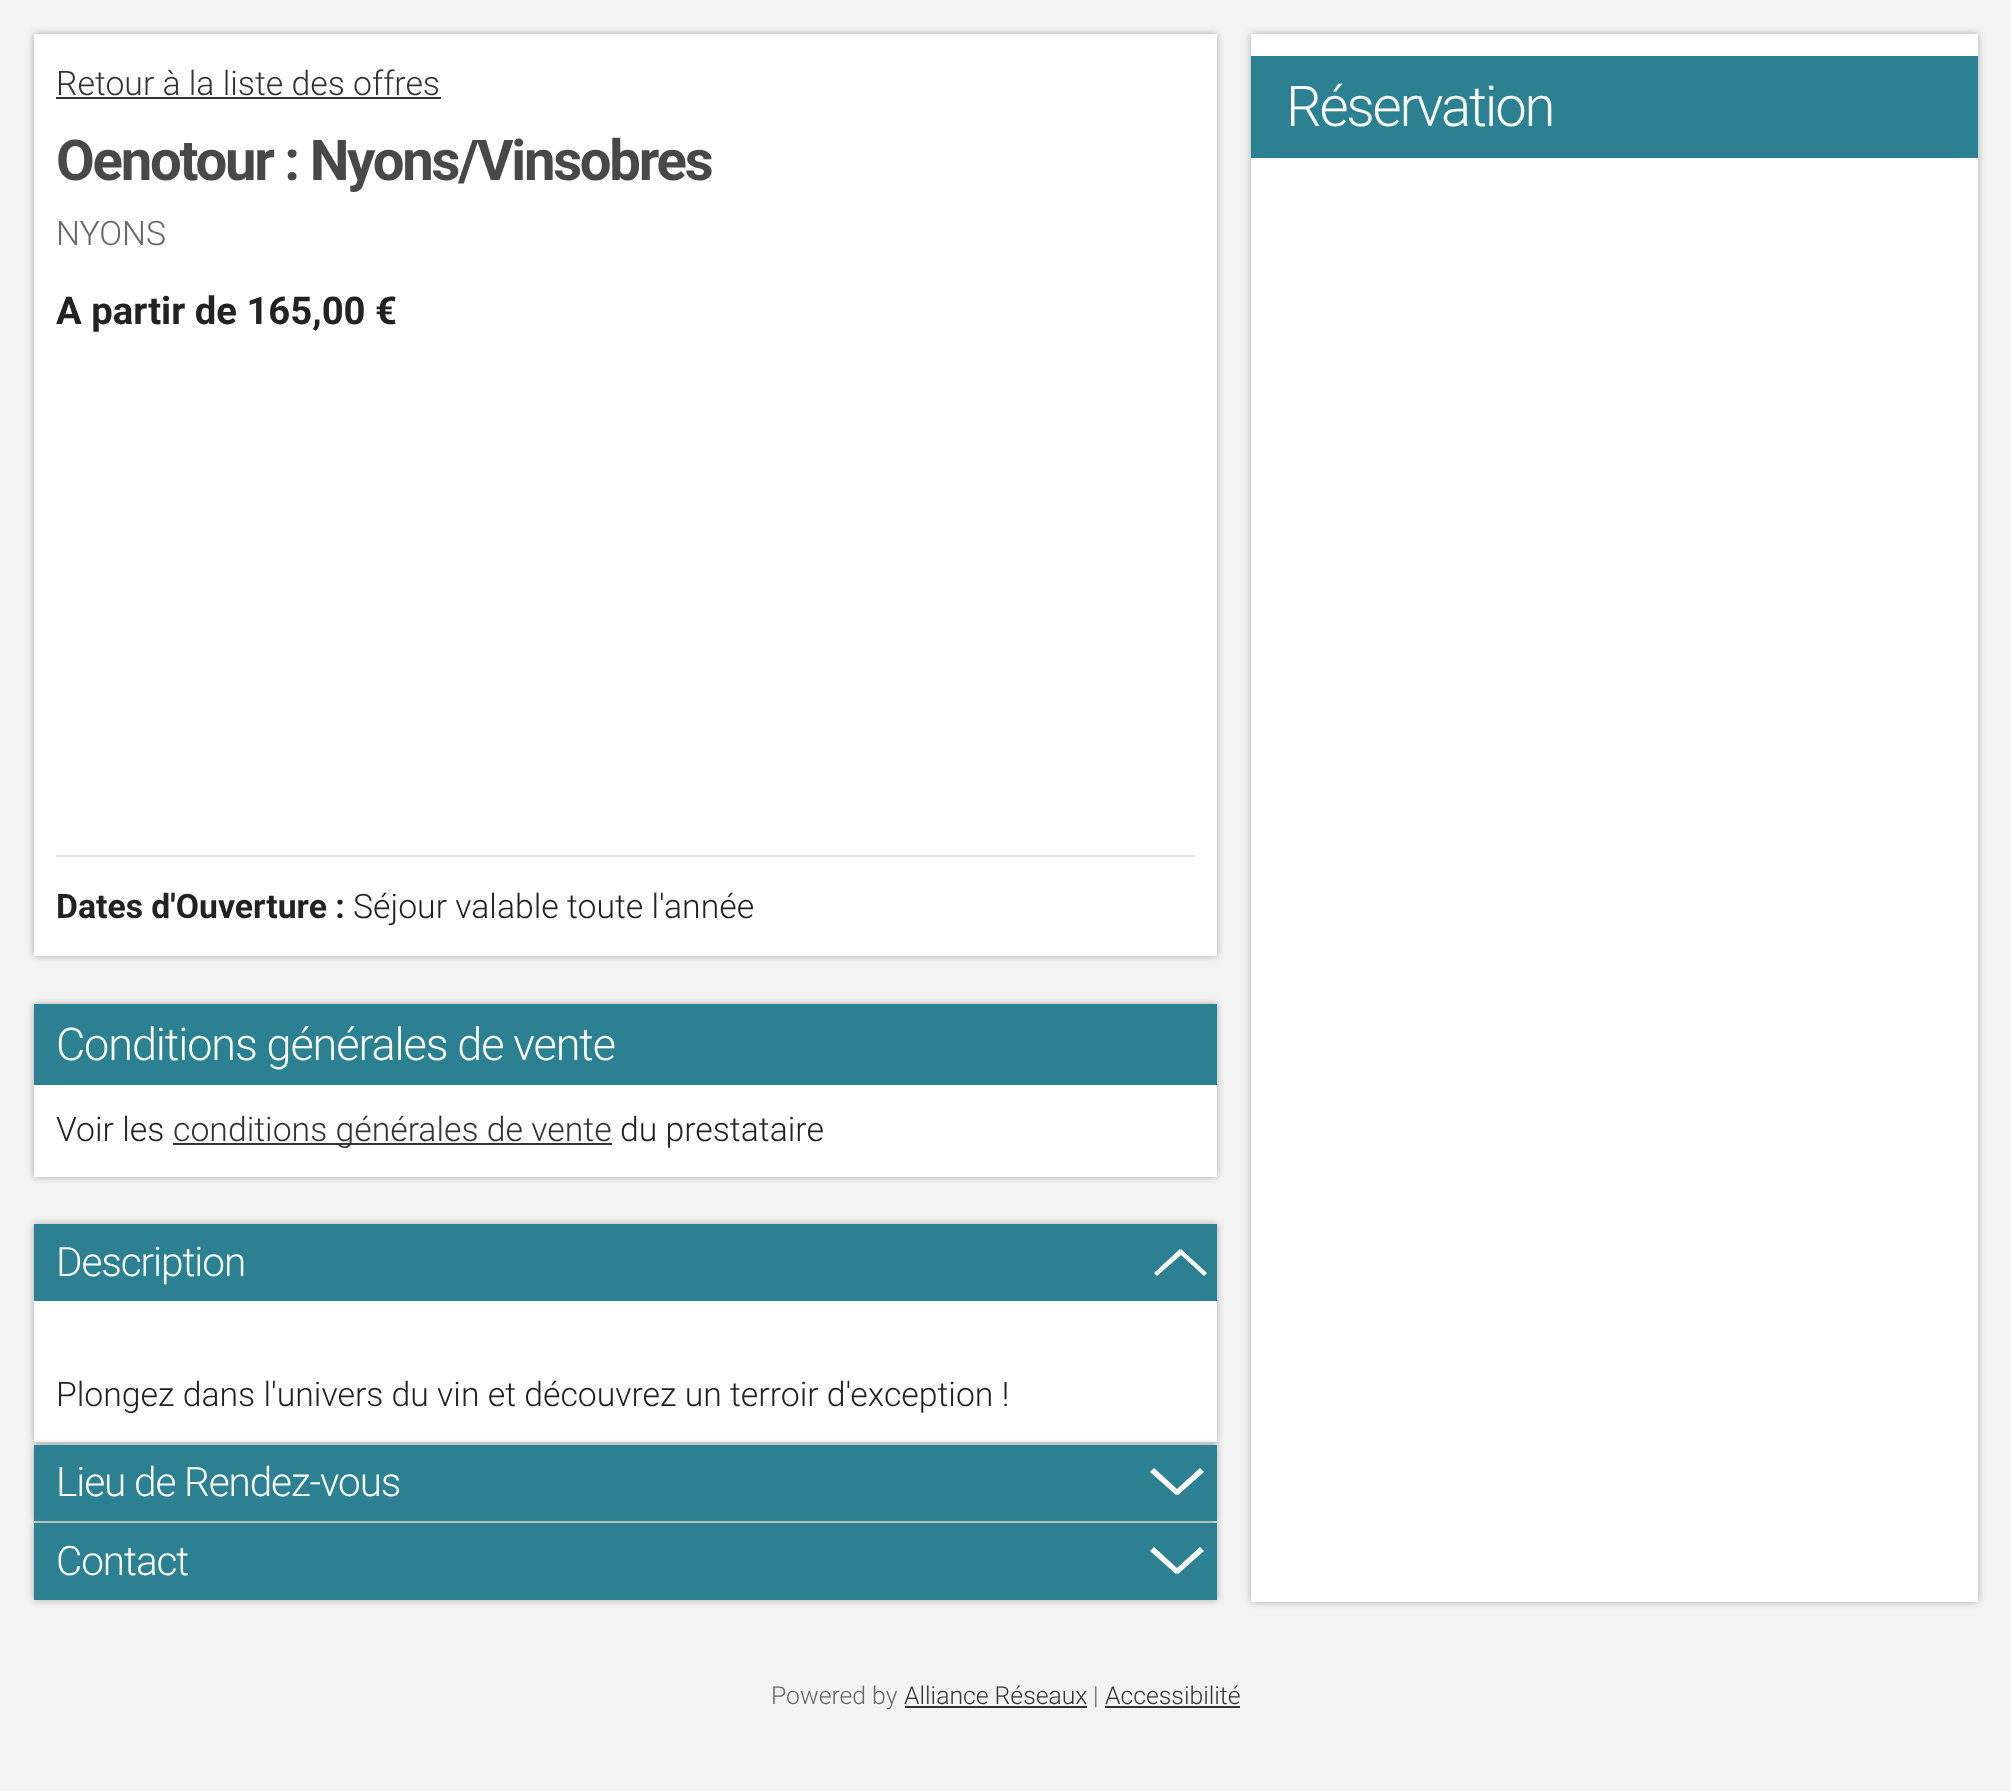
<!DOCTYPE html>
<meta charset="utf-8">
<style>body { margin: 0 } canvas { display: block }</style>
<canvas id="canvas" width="2011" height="1791"></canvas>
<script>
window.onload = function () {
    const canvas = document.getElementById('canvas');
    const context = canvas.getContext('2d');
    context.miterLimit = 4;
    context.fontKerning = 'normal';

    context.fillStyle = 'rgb(243, 243, 243)';
    context.fillRect(0, 0, 2011, 1791);
    context.fillStyle = 'rgba(0, 0, 0, 0.3)';
    context.filter = 'blur(3.5px)';
    context.beginPath();
    context.rect(34, 34, 1183, 922);
    context.fill();
    context.filter = 'none';
    context.fillStyle = 'rgb(255, 255, 255)';
    context.fillRect(34, 34, 1183, 922);
    context.fillStyle = 'rgb(51, 51, 51)';
    context.fillRect(56, 97, 385, 2);
    context.fillStyle = 'rgb(225, 225, 225)';
    context.fillRect(56, 855, 1139, 2);
    context.fillStyle = 'rgba(0, 0, 0, 0.3)';
    context.filter = 'blur(3.5px)';
    context.beginPath();
    context.rect(34, 1004, 1183, 173);
    context.fill();
    context.filter = 'none';
    context.fillStyle = 'rgb(255, 255, 255)';
    context.fillRect(34, 1085, 1183, 92);
    context.fillStyle = 'rgb(43, 128, 145)';
    context.fillRect(34, 1004, 1183, 81);
    context.fillStyle = 'rgb(51, 51, 51)';
    context.fillRect(173, 1143, 439, 2);
    context.fillStyle = 'rgba(0, 0, 0, 0.3)';
    context.filter = 'blur(3.5px)';
    context.beginPath();
    context.rect(34, 1224, 1183, 218);
    context.fill();
    context.filter = 'none';
    context.fillStyle = 'rgb(255, 255, 255)';
    context.fillRect(34, 1301, 1183, 141);
    context.fillStyle = 'rgb(43, 128, 145)';
    context.fillRect(34, 1224, 1183, 77);
    context.fillStyle = 'rgb(255, 255, 255)';
    context.beginPath();
    context.moveTo(1154, 1273);
    context.lineTo(1157, 1276);
    context.lineTo(1181, 1255);
    context.lineTo(1204, 1276);
    context.lineTo(1207, 1273);
    context.lineTo(1181, 1249);
    context.lineTo(1181, 1250);
    context.lineTo(1180, 1249);
    context.closePath();
    context.fill();
    context.fillStyle = 'rgba(0, 0, 0, 0.3)';
    context.filter = 'blur(3.5px)';
    context.beginPath();
    context.rect(34, 1445, 1183, 76);
    context.fill();
    context.filter = 'none';
    context.filter = 'blur(3.5px)';
    context.beginPath();
    context.rect(34, 1523, 1183, 77);
    context.fill();
    context.filter = 'none';
    context.fillStyle = 'rgb(43, 128, 145)';
    context.fillRect(34, 1445, 1183, 76);
    context.fillStyle = 'rgb(255, 255, 255)';
    context.beginPath();
    context.moveTo(1204, 1472);
    context.lineTo(1200, 1468);
    context.lineTo(1177, 1489);
    context.lineTo(1154, 1468);
    context.lineTo(1150, 1472);
    context.lineTo(1176, 1495);
    context.lineTo(1177, 1495);
    context.lineTo(1178, 1495);
    context.closePath();
    context.fill();
    context.fillStyle = 'rgb(43, 128, 145)';
    context.fillRect(34, 1523, 1183, 77);
    context.fillStyle = 'rgb(255, 255, 255)';
    context.beginPath();
    context.moveTo(1204, 1551);
    context.lineTo(1200, 1547);
    context.lineTo(1177, 1568);
    context.lineTo(1154, 1547);
    context.lineTo(1150, 1551);
    context.lineTo(1176, 1574);
    context.lineTo(1177, 1573);
    context.lineTo(1178, 1574);
    context.closePath();
    context.fill();
    context.fillStyle = 'rgba(0, 0, 0, 0.3)';
    context.filter = 'blur(3.5px)';
    context.beginPath();
    context.rect(1251, 34, 727, 1568);
    context.fill();
    context.filter = 'none';
    context.fillStyle = 'rgb(255, 255, 255)';
    context.fillRect(1251, 34, 727, 1568);
    context.fillStyle = 'rgb(43, 128, 145)';
    context.fillRect(1251, 56, 727, 102);
    context.fillStyle = 'rgb(51, 51, 51)';
    context.fillRect(905, 1706, 182, 2);
    context.fillRect(1105, 1706, 135, 2);
    context.font = '300 33.75px Roboto';
    context.fillText('Retour à la liste des offres', 56, 95);
    context.letterSpacing = '-2.25px';
    context.font = 'bold 56.25px Roboto';
    context.fillStyle = 'rgb(72, 72, 72)';
    context.fillText('Oenotour : Nyons/Vinsobres', 56, 180);
    context.letterSpacing = '0px';
    context.font = '300 33.75px Roboto';
    context.fillStyle = 'rgb(102, 102, 102)';
    context.fillText('NYONS', 56, 245);
    context.font = 'bold 38.25px Roboto';
    context.fillStyle = 'rgb(34, 34, 34)';
    context.fillText('A partir de 165,00 €', 56, 324);
    context.font = 'bold 33.75px Roboto';
    context.fillText('Dates d\'Ouverture :', 56, 918);
    context.font = '300 33.75px Roboto';
    context.fillText('Séjour valable toute l\'année', 353, 918);
    context.letterSpacing = '-1.1px';
    context.font = '300 45px Roboto';
    context.fillStyle = 'rgb(255, 255, 255)';
    context.fillText('Conditions générales de vente', 56, 1060);
    context.letterSpacing = '0px';
    context.font = '300 33.75px Roboto';
    context.fillStyle = 'rgb(34, 34, 34)';
    context.fillText('Voir les', 56, 1141);
    context.fillStyle = 'rgb(51, 51, 51)';
    context.fillText('conditions générales de vente', 173, 1141);
    context.fillStyle = 'rgb(34, 34, 34)';
    context.fillText('du prestataire', 620, 1141);
    context.letterSpacing = '-1.1px';
    context.font = '300 40.5px Roboto';
    context.fillStyle = 'rgb(255, 255, 255)';
    context.fillText('Description', 56, 1276);
    context.letterSpacing = '0px';
    context.font = '300 33.75px Roboto';
    context.fillStyle = 'rgb(34, 34, 34)';
    context.fillText('Plongez dans l\'univers du vin et découvrez un terroir d\'exception !', 56, 1406);
    context.letterSpacing = '-1.1px';
    context.font = '300 40.5px Roboto';
    context.fillStyle = 'rgb(255, 255, 255)';
    context.fillText('Lieu de Rendez-vous', 56, 1496);
    context.fillText('Contact', 56, 1575);
    context.letterSpacing = '-2.25px';
    context.font = '300 56.25px Roboto';
    context.fillText('Réservation', 1286, 126);
    context.letterSpacing = '0px';
    context.font = '300 24.75px Roboto';
    context.fillStyle = 'rgb(102, 102, 102)';
    context.fillText('Powered by', 771, 1704);
    context.fillStyle = 'rgb(51, 51, 51)';
    context.fillText('Alliance Réseaux', 904, 1704);
    context.fillStyle = 'rgb(102, 102, 102)';
    context.fillText('|', 1093, 1704);
    context.fillStyle = 'rgb(51, 51, 51)';
    context.fillText('Accessibilité', 1105, 1704);
};
</script>
